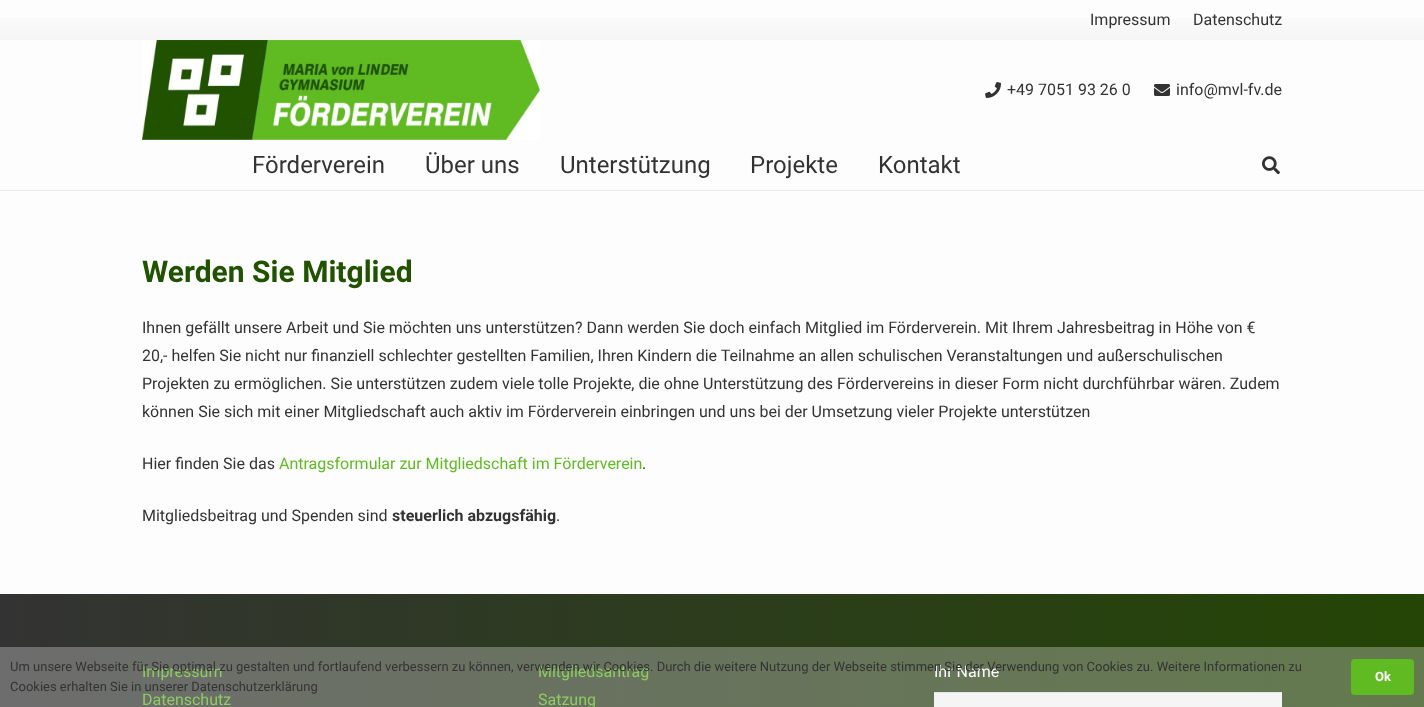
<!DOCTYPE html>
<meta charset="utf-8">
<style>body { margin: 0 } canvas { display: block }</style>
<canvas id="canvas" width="1424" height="707"></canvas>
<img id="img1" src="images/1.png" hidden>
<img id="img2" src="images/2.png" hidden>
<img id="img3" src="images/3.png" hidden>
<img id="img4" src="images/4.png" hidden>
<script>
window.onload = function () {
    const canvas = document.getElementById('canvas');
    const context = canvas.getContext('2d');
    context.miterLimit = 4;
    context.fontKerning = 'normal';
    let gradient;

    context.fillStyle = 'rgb(253, 253, 253)';
    context.fillRect(0, 0, 1424, 707);
    gradient = context.createLinearGradient(712, 40, 712, 0);
    gradient.addColorStop(0, 'rgb(245, 245, 245)');
    gradient.addColorStop(1, 'rgb(255, 255, 255)');
    context.fillStyle = gradient;
    context.fillRect(0, 18, 1424, 22);
    context.drawImage(document.getElementById('img1'), 142, 40, 398, 100);
    context.drawImage(document.getElementById('img2'), 985, 82, 16, 16);
    context.drawImage(document.getElementById('img3'), 1154, 84, 16, 12);
    context.fillStyle = 'rgb(233, 233, 233)';
    context.fillRect(0, 190, 1424, 1);
    context.drawImage(document.getElementById('img4'), 1262, 156, 18, 19);
    gradient = context.createLinearGradient(0, 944, 1424, 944);
    gradient.addColorStop(0, 'rgb(109, 109, 109)');
    gradient.addColorStop(1, 'rgb(99, 122, 77)');
    context.fillStyle = gradient;
    context.fillRect(0, 647, 1424, 60);
    context.fillStyle = 'rgb(96, 187, 34)';
    context.beginPath();
    context.roundRect(1351, 659, 63, 36, 4);
    context.fill();
    gradient = context.createLinearGradient(0, 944, 1424, 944);
    gradient.addColorStop(0, 'rgb(51, 51, 51)');
    gradient.addColorStop(1, 'rgb(36, 69, 5)');
    context.fillStyle = gradient;
    context.fillRect(0, 594, 1424, 53);
    context.fillStyle = 'rgb(245, 245, 245)';
    context.fillRect(934, 693, 348, 14);
    context.fillStyle = 'rgb(231, 231, 231)';
    context.fillRect(934, 692, 348, 1);
    context.font = '16px Roboto';
    context.fillStyle = 'rgb(51, 51, 51)';
    context.fillText('Impressum', 1090, 25);
    context.fillText('Datenschutz', 1193, 25);
    context.fillText('+49 7051 93 26 0', 1007, 95);
    context.fillText('info@mvl-fv.de', 1176, 95);
    context.font = '24px Roboto';
    context.fillText('Förderverein', 252, 173);
    context.fillText('Über uns', 425, 173);
    context.fillText('Unterstützung', 560, 173);
    context.fillText('Projekte', 750, 173);
    context.fillText('Kontakt', 878, 173);
    context.font = 'bold 30px Roboto';
    context.fillStyle = 'rgb(33, 82, 0)';
    context.fillText('Werden Sie Mitglied', 142, 282);
    context.font = '16px Roboto';
    context.fillStyle = 'rgb(51, 51, 51)';
    context.fillText('Ihnen gefällt unsere Arbeit und Sie möchten uns unterstützen? Dann werden Sie doch einfach Mitglied im Förderverein. Mit Ihrem Jahresbeitrag in Höhe von €', 142, 333);
    context.fillText('20,- helfen Sie nicht nur finanziell schlechter gestellten Familien, Ihren Kindern die Teilnahme an allen schulischen Veranstaltungen und außerschulischen', 142, 361);
    context.fillText('Projekten zu ermöglichen. Sie unterstützen zudem viele tolle Projekte, die ohne Unterstützung des Fördervereins in dieser Form nicht durchführbar wären. Zudem', 142, 389);
    context.fillText('können Sie sich mit einer Mitgliedschaft auch aktiv im Förderverein einbringen und uns bei der Umsetzung vieler Projekte unterstützen', 142, 417);
    context.fillText('Hier finden Sie das', 142, 469);
    context.fillStyle = 'rgb(96, 187, 34)';
    context.fillText('Antragsformular zur Mitgliedschaft im Förderverein', 279, 469);
    context.fillStyle = 'rgb(51, 51, 51)';
    context.fillText('.', 642, 469);
    context.fillText('Mitgliedsbeitrag und Spenden sind', 142, 521);
    context.font = 'bold 16px Roboto';
    context.fillText('steuerlich abzugsfähig', 392, 521);
    context.font = '16px Roboto';
    context.fillText('.', 556, 521);
    context.font = '13px Roboto';
    context.fillText('Cookies erhalten Sie in unserer Datenschutzerklärung', 10, 691);
    context.font = 'bold 13px Roboto';
    context.fillStyle = 'rgb(252, 252, 252)';
    context.fillText('Ok', 1375, 681);
    context.font = '16px Roboto';
    context.fillStyle = 'rgb(141, 204, 97)';
    context.fillText('Impressum', 142, 677);
    context.fillText('Datenschutz', 142, 705);
    context.fillText('Mitgliedsantrag', 538, 677);
    context.fillText('Satzung', 538, 705);
    context.fillStyle = 'rgb(252, 252, 252)';
    context.fillText('Ihr Name', 934, 677);
    context.font = '13px Roboto';
    context.fillStyle = 'rgb(51, 51, 51)';
    context.fillText('Um unsere Webseite für Sie optimal zu gestalten und fortlaufend verbessern zu können, verwenden wir Cookies. Durch die weitere Nutzung der Webseite stimmen Sie der Verwendung von Cookies zu. Weitere Informationen zu', 10, 671);
};
</script>
